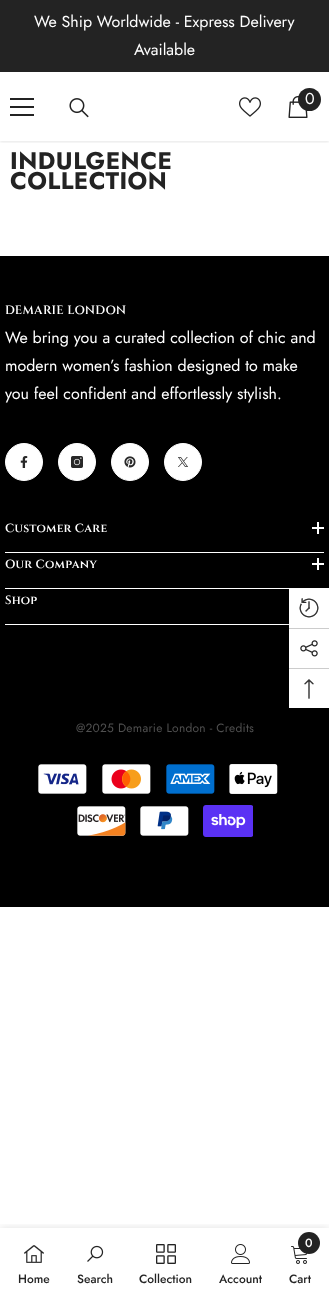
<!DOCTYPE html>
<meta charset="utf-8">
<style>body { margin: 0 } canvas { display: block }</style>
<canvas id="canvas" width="329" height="1296"></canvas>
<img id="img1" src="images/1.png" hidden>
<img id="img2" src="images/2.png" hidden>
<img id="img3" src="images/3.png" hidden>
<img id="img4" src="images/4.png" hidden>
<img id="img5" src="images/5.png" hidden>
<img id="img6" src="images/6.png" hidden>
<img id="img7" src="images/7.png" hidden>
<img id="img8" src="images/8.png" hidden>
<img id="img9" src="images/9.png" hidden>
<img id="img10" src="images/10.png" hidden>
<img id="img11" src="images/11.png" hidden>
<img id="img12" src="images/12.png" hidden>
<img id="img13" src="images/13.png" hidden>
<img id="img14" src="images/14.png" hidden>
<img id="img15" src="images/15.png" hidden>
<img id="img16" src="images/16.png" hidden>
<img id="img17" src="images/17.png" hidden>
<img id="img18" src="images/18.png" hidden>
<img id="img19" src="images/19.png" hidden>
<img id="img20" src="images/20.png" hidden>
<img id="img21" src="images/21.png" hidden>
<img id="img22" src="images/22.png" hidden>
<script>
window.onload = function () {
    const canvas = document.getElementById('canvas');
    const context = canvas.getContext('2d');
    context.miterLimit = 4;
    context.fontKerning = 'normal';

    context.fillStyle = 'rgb(255, 255, 255)';
    context.fillRect(0, 0, 329, 1296);
    context.fillStyle = 'rgb(35, 35, 35)';
    context.fillRect(0, 0, 329, 72);
    context.save();
    context.beginPath();
    context.rect(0, 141, 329, 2);
    context.clip();
    context.fillStyle = 'rgba(0, 0, 0, 0.1)';
    context.filter = 'blur(1.5px)';
    context.beginPath();
    context.rect(0, 73, 329, 69);
    context.fill();
    context.filter = 'none';
    context.restore();
    context.fillRect(10, 106, 24, 2);
    context.fillRect(10, 98, 24, 2);
    context.fillRect(10, 114, 24, 2);
    context.drawImage(document.getElementById('img1'), 69, 98, 20, 20);
    context.drawImage(document.getElementById('img2'), 239, 97, 22, 20);
    context.drawImage(document.getElementById('img3'), 288, 96, 20, 22);
    context.beginPath();
    context.arc(309.5, 99.5, 11.5, 0, 2 * Math.PI);
    context.fill();
    context.fillStyle = 'rgb(0, 0, 0)';
    context.fillRect(0, 256, 329, 651);
    context.fillStyle = 'rgb(255, 255, 255)';
    context.beginPath();
    context.arc(24, 462, 18.5, 0, 2 * Math.PI);
    context.fill();
    context.strokeStyle = 'rgb(255, 255, 255)';
    context.stroke();
    context.drawImage(document.getElementById('img4'), 20, 456, 8, 12);
    context.beginPath();
    context.arc(77, 462, 18.5, 0, 2 * Math.PI);
    context.fill();
    context.stroke();
    context.drawImage(document.getElementById('img5'), 71, 456, 12, 12);
    context.beginPath();
    context.arc(130, 462, 18.5, 0, 2 * Math.PI);
    context.fill();
    context.stroke();
    context.drawImage(document.getElementById('img6'), 124, 456, 12, 12);
    context.beginPath();
    context.arc(183, 462, 18.5, 0, 2 * Math.PI);
    context.fill();
    context.stroke();
    context.drawImage(document.getElementById('img7'), 178, 457, 10, 10);
    context.fillRect(5, 552, 319, 1);
    context.fillRect(317, 522, 2, 12);
    context.fillRect(312, 527, 12, 2);
    context.fillRect(5, 588, 284, 1);
    context.fillRect(317, 558, 2, 12);
    context.fillRect(312, 563, 12, 2);
    context.fillRect(5, 624, 284, 1);
    context.drawImage(document.getElementById('img8'), 38, 764, 49, 30);
    context.drawImage(document.getElementById('img9'), 102, 764, 49, 30);
    context.drawImage(document.getElementById('img10'), 166, 764, 49, 30);
    context.drawImage(document.getElementById('img11'), 229, 764, 49, 30);
    context.drawImage(document.getElementById('img12'), 77, 806, 49, 30);
    context.drawImage(document.getElementById('img13'), 140, 806, 49, 30);
    context.drawImage(document.getElementById('img14'), 203, 805, 50, 32);
    context.save();
    context.beginPath();
    context.rect(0, 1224, 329, 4);
    context.clip();
    context.fillStyle = 'rgba(0, 0, 0, 0.12)';
    context.filter = 'blur(4.5px)';
    context.beginPath();
    context.rect(0, 1228, 329, 68);
    context.fill();
    context.filter = 'none';
    context.restore();
    context.drawImage(document.getElementById('img15'), 24, 1245, 20, 18);
    context.drawImage(document.getElementById('img16'), 87, 1245, 17, 17);
    context.drawImage(document.getElementById('img17'), 156, 1244, 20, 20);
    context.drawImage(document.getElementById('img18'), 231, 1244, 19, 20);
    context.drawImage(document.getElementById('img19'), 291, 1246, 17, 18);
    context.fillStyle = 'rgb(35, 35, 35)';
    context.beginPath();
    context.arc(309, 1243, 11, 0, 2 * Math.PI);
    context.fill();
    context.fillStyle = 'rgba(0, 0, 0, 0.2)';
    context.filter = 'blur(3.5px)';
    context.beginPath();
    context.rect(289, 591, 40, 120);
    context.fill();
    context.filter = 'none';
    context.fillStyle = 'rgb(255, 255, 255)';
    context.fillRect(289, 588, 40, 120);
    context.drawImage(document.getElementById('img20'), 299, 598, 20, 20);
    context.fillStyle = 'rgb(204, 204, 204)';
    context.fillRect(289, 628, 40, 1);
    context.drawImage(document.getElementById('img21'), 300, 640, 18, 17);
    context.fillRect(289, 668, 40, 1);
    context.drawImage(document.getElementById('img22'), 304, 679, 10, 20);
    context.font = '16px Jost';
    context.fillStyle = 'rgb(255, 255, 255)';
    context.fillText('We Ship Worldwide - Express Delivery', 34, 27);
    context.fillText('Available', 134, 55);
    context.fillText('0', 305, 104);
    context.letterSpacing = '0.5px';
    context.font = 'bold 24px Jost';
    context.fillStyle = 'rgb(35, 35, 35)';
    context.fillText('INDULGENCE', 10, 169);
    context.fillText('COLLECTION', 10, 189);
    context.letterSpacing = '0.25px';
    context.font = '600 12px Cinzel';
    context.fillStyle = 'rgb(255, 255, 255)';
    context.fillText('DEMARIE LONDON', 5, 314);
    context.letterSpacing = '0px';
    context.font = '16px Jost';
    context.fillText('We bring you a curated collection of chic and', 5, 343);
    context.fillText('modern women’s fashion designed to make', 5, 371);
    context.fillText('you feel confident and effortlessly stylish.', 5, 399);
    context.letterSpacing = '0.25px';
    context.font = '600 12px Cinzel';
    context.fillText('Customer Care', 5, 532);
    context.fillText('Our Company', 5, 568);
    context.fillText('Shop', 5, 604);
    context.font = '12px Jost';
    context.fillStyle = 'rgb(80, 80, 80)';
    context.fillText('@2025 Demarie London - Credits', 76, 732);
    context.letterSpacing = '0px';
    context.font = '500 12px Jost';
    context.fillStyle = 'rgb(35, 35, 35)';
    context.fillText('Home', 18, 1283);
    context.fillText('Search', 77, 1283);
    context.fillText('Collection', 139, 1283);
    context.fillText('Account', 219, 1283);
    context.fillStyle = 'rgb(255, 255, 255)';
    context.fillText('0', 305, 1247);
    context.fillStyle = 'rgb(35, 35, 35)';
    context.fillText('Cart', 289, 1283);
};
</script>
